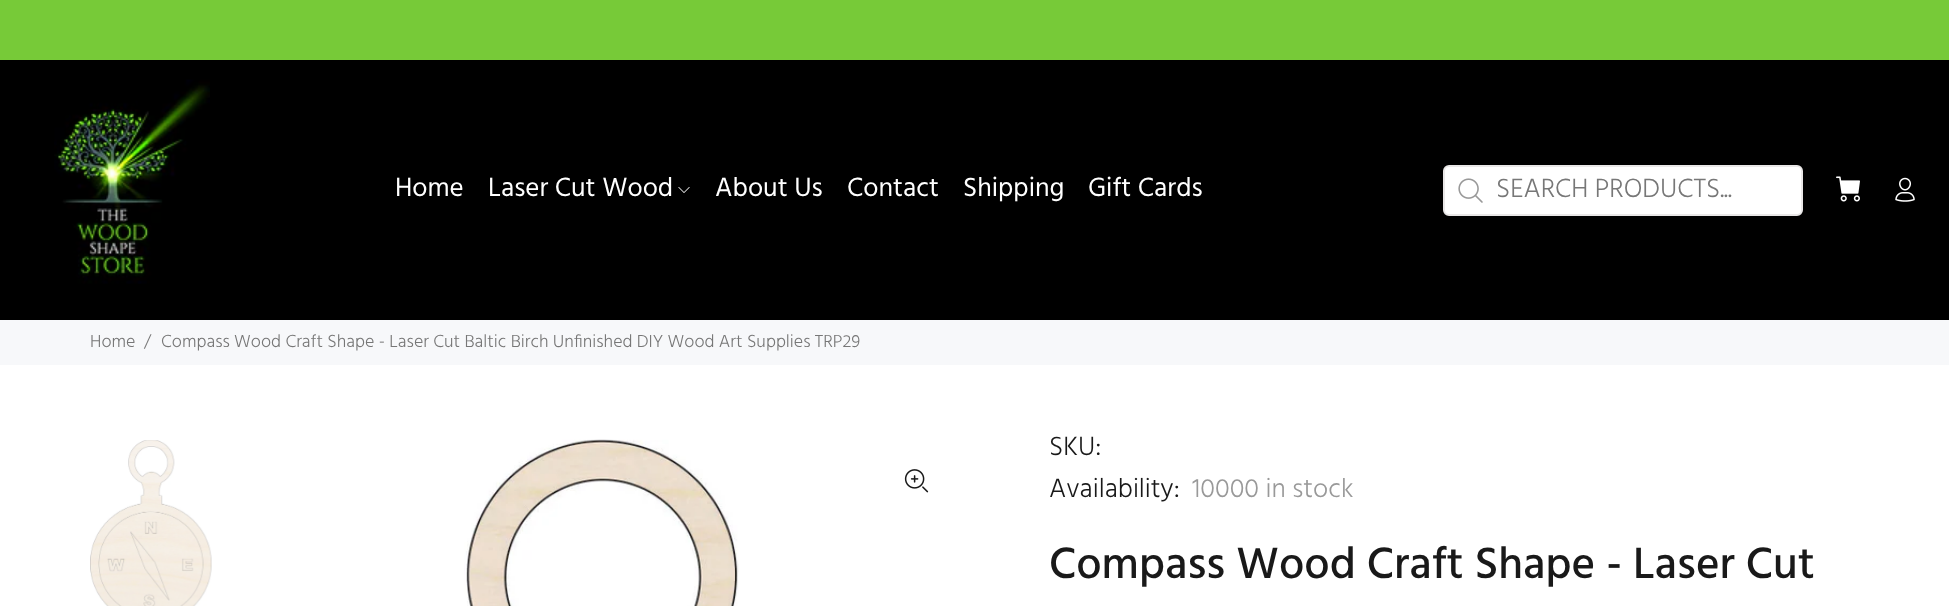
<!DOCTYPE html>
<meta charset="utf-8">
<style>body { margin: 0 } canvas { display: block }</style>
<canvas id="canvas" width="1949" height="606"></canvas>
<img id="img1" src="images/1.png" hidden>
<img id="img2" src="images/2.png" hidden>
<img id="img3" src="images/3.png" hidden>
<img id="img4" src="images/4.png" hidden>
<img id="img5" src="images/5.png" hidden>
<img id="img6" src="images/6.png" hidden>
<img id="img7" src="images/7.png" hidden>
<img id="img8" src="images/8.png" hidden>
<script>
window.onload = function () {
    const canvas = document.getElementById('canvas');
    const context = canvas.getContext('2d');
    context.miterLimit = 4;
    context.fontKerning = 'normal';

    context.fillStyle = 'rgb(255, 255, 255)';
    context.fillRect(0, 0, 1949, 606);
    context.fillStyle = 'rgb(0, 0, 0)';
    context.fillRect(0, 60, 1949, 260);
    context.fillStyle = 'rgb(119, 202, 56)';
    context.fillRect(0, 0, 1949, 60);
    context.drawImage(document.getElementById('img1'), 54, 79, 156, 205);
    context.drawImage(document.getElementById('img2'), 678, 187, 12, 6);
    context.fillStyle = 'rgb(255, 255, 255)';
    context.beginPath();
    context.roundRect(1444, 166, 358, 49, 5);
    context.fill();
    context.strokeStyle = 'rgb(233, 231, 231)';
    context.lineWidth = 2;
    context.stroke();
    context.drawImage(document.getElementById('img3'), 1458, 178, 25, 25);
    context.drawImage(document.getElementById('img4'), 1836, 176, 24, 26);
    context.drawImage(document.getElementById('img5'), 1895, 177, 20, 25);
    context.fillStyle = 'rgb(247, 248, 250)';
    context.fillRect(0, 320, 1949, 45);
    context.drawImage(document.getElementById('img6'), 90, 440, 122, 166);
    context.drawImage(document.getElementById('img7'), 464, 439, 275, 167);
    context.drawImage(document.getElementById('img8'), 904, 469, 25, 24);
    context.font = '27px Hind';
    context.fillStyle = 'rgb(255, 255, 255)';
    context.fillText('Home', 395, 196);
    context.fillText('Laser Cut Wood', 488, 196);
    context.fillText('About Us', 715, 196);
    context.fillText('Contact', 847, 196);
    context.fillText('Shipping', 963, 196);
    context.fillText('Gift Cards', 1088, 196);
    context.font = '300 27px Hind';
    context.fillStyle = 'rgb(119, 119, 119)';
    context.fillText('SEARCH PRODUCTS...', 1496, 197);
    context.font = '300 18px Hind';
    context.fillText('Home', 90, 347);
    context.fillText('/', 144, 347);
    context.fillText('Compass Wood Craft Shape - Laser Cut Baltic Birch Unfinished DIY Wood Art Supplies TRP29', 161, 347);
    context.font = '300 27px Hind';
    context.fillStyle = 'rgb(25, 25, 25)';
    context.fillText('SKU:', 1049, 455);
    context.fillText('Availability:', 1049, 497);
    context.fillStyle = 'rgb(153, 153, 153)';
    context.fillText('10000 in stock', 1192, 497);
    context.font = '500 45px Hind';
    context.fillStyle = 'rgb(25, 25, 25)';
    context.fillText('Compass Wood Craft Shape - Laser Cut', 1049, 578);
};
</script>
